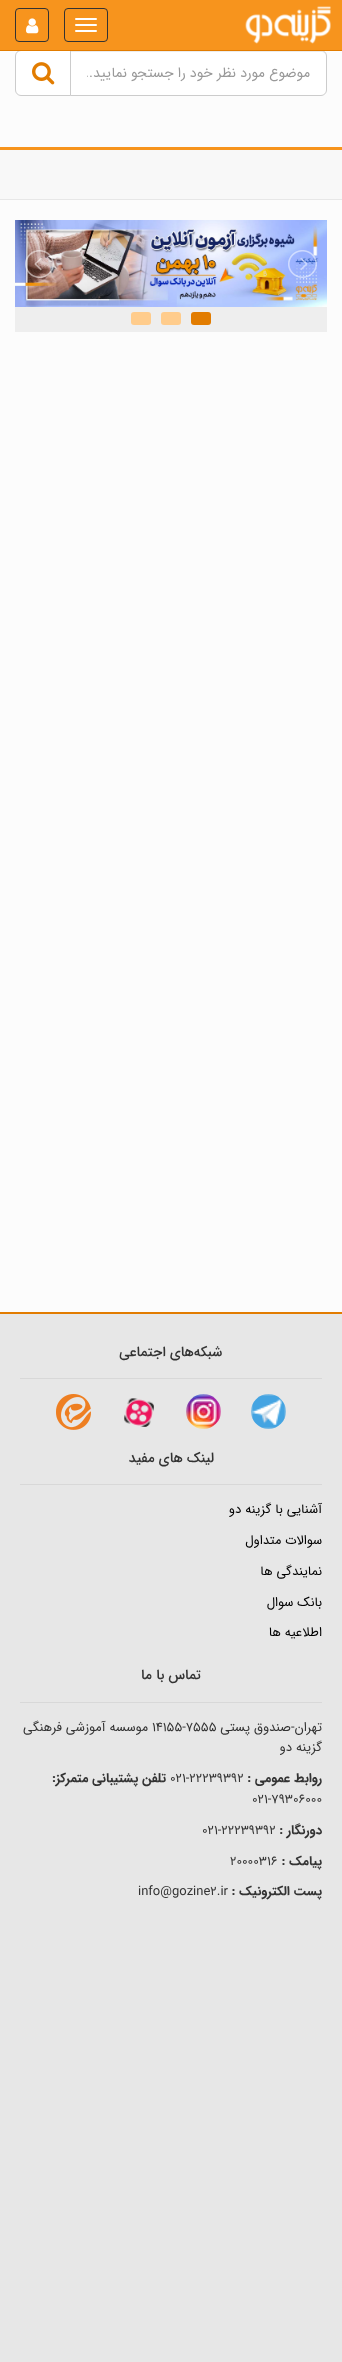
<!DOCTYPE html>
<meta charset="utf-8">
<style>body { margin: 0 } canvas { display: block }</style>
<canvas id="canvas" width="342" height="2362"></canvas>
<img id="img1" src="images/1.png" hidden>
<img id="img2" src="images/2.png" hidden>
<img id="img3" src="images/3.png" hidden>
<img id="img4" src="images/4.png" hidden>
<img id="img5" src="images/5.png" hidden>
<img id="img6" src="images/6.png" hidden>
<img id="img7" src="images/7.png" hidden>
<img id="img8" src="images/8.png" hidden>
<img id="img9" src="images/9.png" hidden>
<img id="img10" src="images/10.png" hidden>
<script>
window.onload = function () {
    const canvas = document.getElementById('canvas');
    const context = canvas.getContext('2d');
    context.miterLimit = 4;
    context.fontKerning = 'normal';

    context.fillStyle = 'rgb(252, 252, 252)';
    context.fillRect(0, 0, 342, 2362);
    context.fillStyle = 'rgb(247, 148, 29)';
    context.fillRect(0, 0, 342, 50);
    context.fillStyle = 'rgb(255, 255, 255)';
    context.beginPath();
    context.roundRect(70, 50, 257, 46, [0, 6, 6, 0]);
    context.fill();
    context.fillStyle = 'rgb(236, 236, 236)';
    context.beginPath();
    context.moveTo(71, 52);
    context.lineTo(321, 52);
    context.bezierCurveTo(324, 52, 326, 54, 326, 57);
    context.bezierCurveTo(326, 54, 324, 51, 321, 51);
    context.lineTo(71, 51);
    context.closePath();
    context.fill();
    context.beginPath();
    context.roundRect(70.5, 50.5, 256, 45, [0, 5.5, 5.5, 0]);
    context.strokeStyle = 'rgb(204, 204, 204)';
    context.stroke();
    context.fillStyle = 'rgb(255, 255, 255)';
    context.beginPath();
    context.roundRect(15.5, 50.5, 55, 45, [5.5, 0, 0, 5.5]);
    context.fill();
    context.stroke();
    context.fillStyle = 'rgb(226, 124, 0)';
    context.fillRect(0, 50, 342, 1);
    context.drawImage(document.getElementById('img1'), 245, 6, 86, 38);
    context.beginPath();
    context.roundRect(64.5, 8.5, 43, 33, 3.5);
    context.strokeStyle = 'rgb(51, 51, 51)';
    context.stroke();
    context.fillStyle = 'rgb(255, 255, 255)';
    context.beginPath();
    context.roundRect(75, 18, 22, 2, 1);
    context.fill();
    context.beginPath();
    context.roundRect(75, 24, 22, 2, 1);
    context.fill();
    context.beginPath();
    context.roundRect(75, 30, 22, 2, 1);
    context.fill();
    context.beginPath();
    context.roundRect(15.5, 8.5, 33, 33, 3.5);
    context.stroke();
    context.drawImage(document.getElementById('img2'), 26, 18, 13, 16);
    context.fillStyle = 'rgb(247, 148, 29)';
    context.fillRect(0, 147, 342, 3);
    context.drawImage(document.getElementById('img3'), 32, 62, 23, 23);
    context.fillStyle = 'rgb(248, 248, 248)';
    context.fillRect(0, 150, 342, 49);
    context.fillStyle = 'rgb(231, 231, 231)';
    context.fillRect(0, 199, 342, 1);
    context.drawImage(document.getElementById('img4'), 15, 220, 312, 87);
    context.drawImage(document.getElementById('img5'), 288, 250, 29, 28);
    context.drawImage(document.getElementById('img6'), 25, 250, 29, 28);
    context.fillStyle = 'rgb(238, 238, 238)';
    context.fillRect(15, 307, 312, 25);
    context.fillStyle = 'rgb(226, 124, 0)';
    context.beginPath();
    context.roundRect(191, 312, 20, 13, 3);
    context.fill();
    context.fillStyle = 'rgb(255, 204, 140)';
    context.beginPath();
    context.roundRect(161, 312, 20, 13, 3);
    context.fill();
    context.beginPath();
    context.roundRect(131, 312, 20, 13, 3);
    context.fill();
    context.fillStyle = 'rgb(231, 231, 231)';
    context.fillRect(0, 1314, 342, 1048);
    context.fillStyle = 'rgb(226, 124, 0)';
    context.fillRect(0, 1312, 342, 2);
    context.fillStyle = 'rgb(216, 216, 216)';
    context.fillRect(20, 1378, 302, 1);
    context.drawImage(document.getElementById('img7'), 251, 1394, 35, 35);
    context.drawImage(document.getElementById('img8'), 186, 1394, 35, 35);
    context.drawImage(document.getElementById('img9'), 124, 1398, 30, 29);
    context.drawImage(document.getElementById('img10'), 56, 1394, 35, 36);
    context.fillRect(20, 1484, 302, 1);
    context.fillRect(20, 1702, 302, 1);
    context.save();
    context.beginPath();
    context.rect(87, 62, 223, 22);
    context.clip();
    context.direction = 'rtl';
    context.font = '14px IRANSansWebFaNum';
    context.fillStyle = 'rgb(153, 153, 153)';
    context.fillText('موضوع مورد نظر خود را جستجو نمایید...', 310, 77);
    context.restore();
    context.direction = 'rtl';
    context.font = '500 14px IRANSansWebFaNum';
    context.fillStyle = 'rgb(51, 51, 51)';
    context.fillText('شبکه‌های اجتماعی', 222, 1356);
    context.fillText('لینک های مفید', 214, 1462);
    context.font = '13px IRANSansWebFaNum';
    context.fillStyle = 'rgb(0, 0, 0)';
    context.fillText('آشنایی با گزینه دو', 322, 1513);
    context.fillText('سوالات متداول', 322, 1544);
    context.fillText('نمایندگی ها', 322, 1575);
    context.fillText('بانک سوال', 322, 1606);
    context.fillText('اطلاعیه ها', 322, 1636);
    context.font = '500 14px IRANSansWebFaNum';
    context.fillStyle = 'rgb(51, 51, 51)';
    context.fillText('تماس با ما', 201, 1679);
    context.font = '13px IRANSansWebFaNum';
    context.fillText('تهران-صندوق پستی', 322, 1731);
    context.direction = 'ltr';
    context.fillText('14155-7555', 152, 1731);
    context.direction = 'rtl';
    context.fillText('موسسه آموزشی فرهنگی', 148, 1731);
    context.fillText('گزینه دو', 322, 1751);
    context.font = 'bold 13px IRANSansWebFaNum';
    context.fillText('روابط عمومی :', 322, 1782);
    context.direction = 'ltr';
    context.font = '13px IRANSansWebFaNum';
    context.fillText('021-22239392', 170, 1782);
    context.direction = 'rtl';
    context.font = 'bold 13px IRANSansWebFaNum';
    context.fillText('تلفن پشتیبانی متمرکز:', 166, 1782);
    context.direction = 'ltr';
    context.font = '13px IRANSansWebFaNum';
    context.fillText('021-79306000', 252, 1803);
    context.direction = 'rtl';
    context.font = 'bold 13px IRANSansWebFaNum';
    context.fillText('دورنگار :', 322, 1834);
    context.direction = 'ltr';
    context.font = '13px IRANSansWebFaNum';
    context.fillText('021-22239392', 202, 1834);
    context.direction = 'rtl';
    context.font = 'bold 13px IRANSansWebFaNum';
    context.fillText('پیامک :', 322, 1865);
    context.direction = 'ltr';
    context.font = '13px IRANSansWebFaNum';
    context.fillText('20000316', 230, 1865);
    context.direction = 'rtl';
    context.font = 'bold 13px IRANSansWebFaNum';
    context.fillText('پست الکترونیک :', 322, 1895);
    context.direction = 'ltr';
    context.font = '13px IRANSansWebFaNum';
    context.fillText('info@gozine2.ir', 138, 1895);
};
</script>
